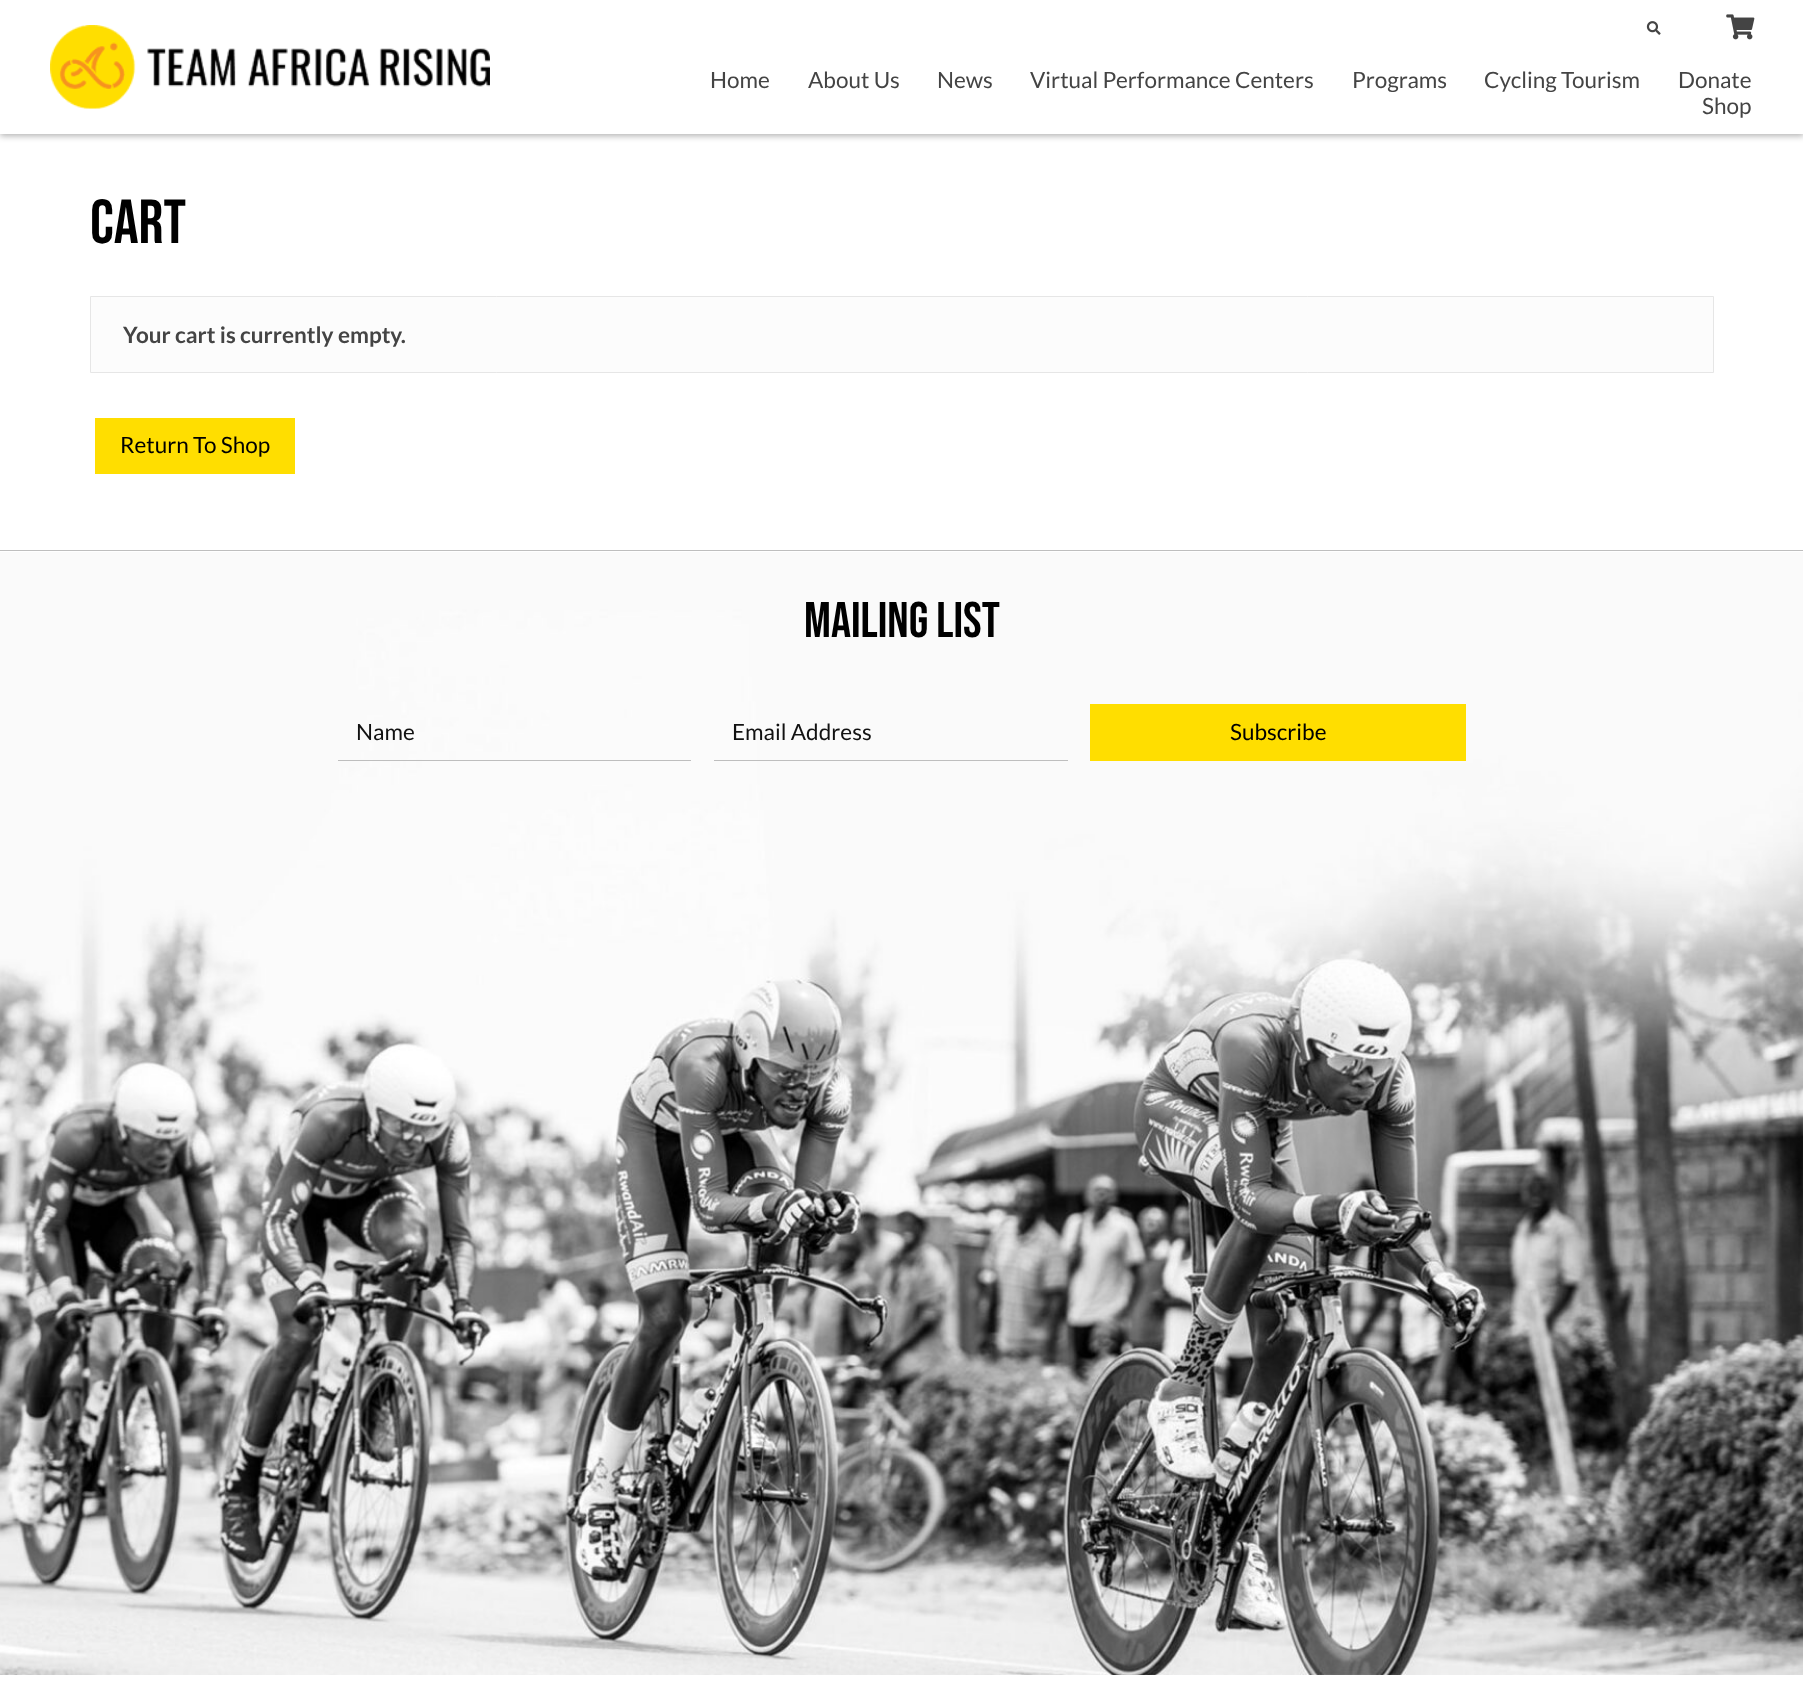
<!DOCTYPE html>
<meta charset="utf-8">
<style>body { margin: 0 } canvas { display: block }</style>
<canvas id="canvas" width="1803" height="1691"></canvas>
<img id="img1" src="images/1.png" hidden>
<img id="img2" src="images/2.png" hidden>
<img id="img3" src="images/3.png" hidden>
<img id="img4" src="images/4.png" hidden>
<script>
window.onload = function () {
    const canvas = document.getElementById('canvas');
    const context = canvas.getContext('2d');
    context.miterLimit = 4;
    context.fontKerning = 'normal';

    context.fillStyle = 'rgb(255, 255, 255)';
    context.fillRect(0, 0, 1803, 1691);
    context.save();
    context.beginPath();
    context.moveTo(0, 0);
    context.lineTo(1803, 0);
    context.lineTo(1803, 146);
    context.lineTo(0, 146);
    context.closePath();
    context.moveTo(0, 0);
    context.lineTo(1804, 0);
    context.lineTo(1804, 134);
    context.lineTo(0, 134);
    context.closePath();
    context.clip('evenodd');
    context.fillStyle = 'rgba(0, 0, 0, 0.3)';
    context.filter = 'blur(3px)';
    context.beginPath();
    context.rect(0, 3, 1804, 133);
    context.fill();
    context.filter = 'none';
    context.restore();
    context.drawImage(document.getElementById('img1'), 50, 25, 440, 84);
    context.drawImage(document.getElementById('img2'), 1646, 21, 15, 14);
    context.drawImage(document.getElementById('img3'), 1726, 14, 29, 26);
    context.fillStyle = 'rgb(252, 252, 252)';
    context.beginPath();
    context.rect(90.5, 296.5, 1623, 76);
    context.fill();
    context.strokeStyle = 'rgb(230, 230, 230)';
    context.stroke();
    context.fillStyle = 'rgb(255, 222, 0)';
    context.fillRect(95, 418, 200, 56);
    context.drawImage(document.getElementById('img4'), 0, 552, 1803, 1123);
    context.fillStyle = 'rgb(190, 190, 190)';
    context.fillRect(0, 550, 1803, 1);
    context.fillRect(338, 760, 353, 1);
    context.fillRect(714, 760, 354, 1);
    context.fillStyle = 'rgb(255, 222, 0)';
    context.fillRect(1090, 704, 376, 57);
    context.font = '22.5px Lato';
    context.fillStyle = 'rgb(68, 68, 68)';
    context.fillText('Home', 710, 88);
    context.fillText('About Us', 808, 88);
    context.fillText('News', 937, 88);
    context.fillText('Virtual Performance Centers', 1030, 88);
    context.fillText('Programs', 1352, 88);
    context.fillText('Cycling Tourism', 1484, 88);
    context.fillText('Donate', 1678, 88);
    context.fillText('Shop', 1702, 114);
    context.font = '62px Bebas Neue';
    context.fillStyle = 'rgb(0, 0, 0)';
    context.fillText('Cart', 90, 243);
    context.font = 'bold 22.5px Lato';
    context.fillStyle = 'rgb(68, 68, 68)';
    context.fillText('Your cart is currently empty.', 123, 343);
    context.font = '22.5px Lato';
    context.fillStyle = 'rgb(0, 0, 0)';
    context.fillText('Return To Shop', 120, 453);
    context.font = '50px Bebas Neue';
    context.fillText('Mailing List', 804, 637);
    context.font = '22.5px Lato';
    context.fillStyle = 'rgb(17, 17, 17)';
    context.fillText('Name', 356, 740);
    context.fillText('Email Address', 732, 740);
    context.fillStyle = 'rgb(0, 0, 0)';
    context.fillText('Subscribe', 1230, 740);
};
</script>
